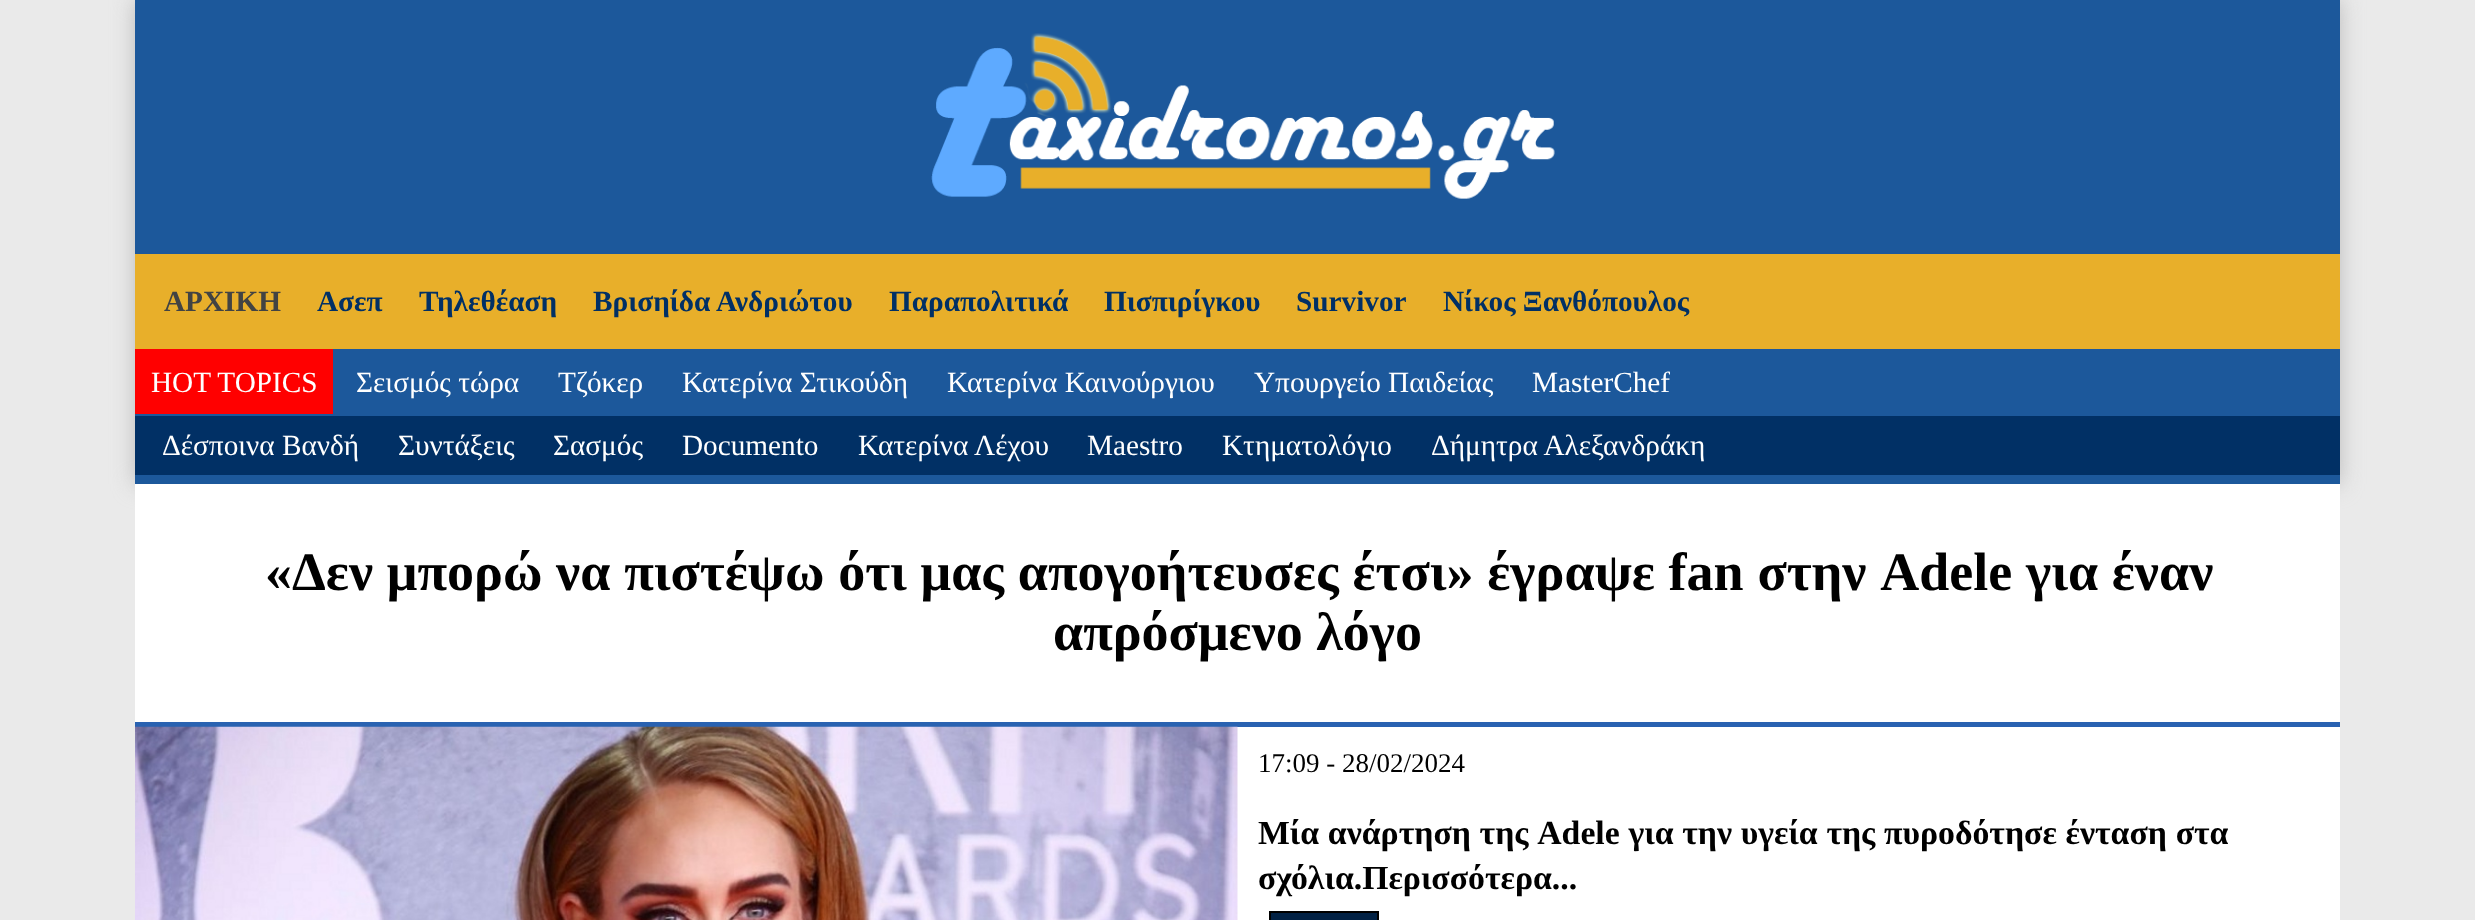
<!DOCTYPE html>
<meta charset="utf-8">
<style>body { margin: 0 } canvas { display: block }</style>
<canvas id="canvas" width="2475" height="920"></canvas>
<img id="img1" src="images/1.png" hidden>
<img id="img2" src="images/2.png" hidden>
<script>
window.onload = function () {
    const canvas = document.getElementById('canvas');
    const context = canvas.getContext('2d');
    context.miterLimit = 4;
    context.fontKerning = 'normal';

    context.fillStyle = 'rgb(234, 234, 234)';
    context.fillRect(0, 0, 2475, 920);
    context.fillStyle = 'rgb(187, 187, 187)';
    context.filter = 'blur(11px)';
    context.beginPath();
    context.rect(135, 0, 2205, 484);
    context.fill();
    context.filter = 'none';
    context.fillStyle = 'rgb(28, 88, 155)';
    context.fillRect(135, 0, 2205, 484);
    context.drawImage(document.getElementById('img1'), 931, 33, 624, 166);
    context.fillStyle = 'rgb(232, 175, 42)';
    context.fillRect(135, 254, 2205, 95);
    context.fillStyle = 'rgb(255, 0, 0)';
    context.fillRect(135, 349, 198, 65);
    context.fillStyle = 'rgb(1, 48, 101)';
    context.fillRect(135, 416, 2205, 59);
    context.fillStyle = 'rgb(255, 255, 255)';
    context.fillRect(135, 484, 2205, 436);
    context.fillStyle = 'rgb(41, 98, 177)';
    context.fillRect(135, 722, 2205, 5);
    context.drawImage(document.getElementById('img2'), 135, 726, 1103, 194);
    context.fillStyle = 'rgb(1, 33, 68)';
    context.beginPath();
    context.rect(1270, 912, 108, 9);
    context.fill();
    context.strokeStyle = 'rgb(0, 0, 0)';
    context.lineWidth = 2;
    context.stroke();
    context.font = 'bold 29.25px Liberation Serif';
    context.fillStyle = 'rgb(66, 67, 67)';
    context.fillText('ΑΡΧΙΚΗ', 164, 311);
    context.fillStyle = 'rgb(1, 48, 101)';
    context.fillText('Ασεπ', 317, 311);
    context.fillText('Τηλεθέαση', 419, 311);
    context.fillText('Βρισηίδα Ανδριώτου', 593, 311);
    context.fillText('Παραπολιτικά', 889, 311);
    context.fillText('Πισπιρίγκου', 1104, 311);
    context.fillText('Survivor', 1296, 311);
    context.fillText('Νίκος Ξανθόπουλος', 1443, 311);
    context.font = '29.25px Liberation Serif';
    context.fillStyle = 'rgb(255, 255, 255)';
    context.fillText('HOT TOPICS', 151, 392);
    context.fillText('Σεισμός τώρα', 356, 392);
    context.fillText('Τζόκερ', 558, 392);
    context.fillText('Κατερίνα Στικούδη', 682, 392);
    context.fillText('Κατερίνα Καινούργιου', 947, 392);
    context.fillText('Υπουργείο Παιδείας', 1254, 392);
    context.fillText('MasterChef', 1532, 392);
    context.fillText('Δέσποινα Βανδή', 162, 455);
    context.fillText('Συντάξεις', 398, 455);
    context.fillText('Σασμός', 553, 455);
    context.fillText('Documento', 682, 455);
    context.fillText('Κατερίνα Λέχου', 858, 455);
    context.fillText('Maestro', 1087, 455);
    context.fillText('Κτηματολόγιο', 1222, 455);
    context.fillText('Δήμητρα Αλεξανδράκη', 1431, 455);
    context.wordSpacing = '0.25px';
    context.font = 'bold 54px Liberation Serif';
    context.fillStyle = 'rgb(0, 0, 0)';
    context.fillText('«Δεν μπορώ να πιστέψω ότι μας απογοήτευσες έτσι» έγραψε fan στην Adele για έναν', 265, 590);
    context.wordSpacing = '0px';
    context.fillText('απρόσμενο λόγο', 1053, 650);
    context.font = '27px Liberation Serif';
    context.fillText('17:09 - 28/02/2024', 1258, 772);
    context.wordSpacing = '0.25px';
    context.font = 'bold 33.75px Liberation Serif';
    context.fillText('Μία ανάρτηση της Adele για την υγεία της πυροδότησε ένταση στα', 1258, 844);
    context.wordSpacing = '0px';
    context.fillText('σχόλια.Περισσότερα...', 1258, 889);
};
</script>
